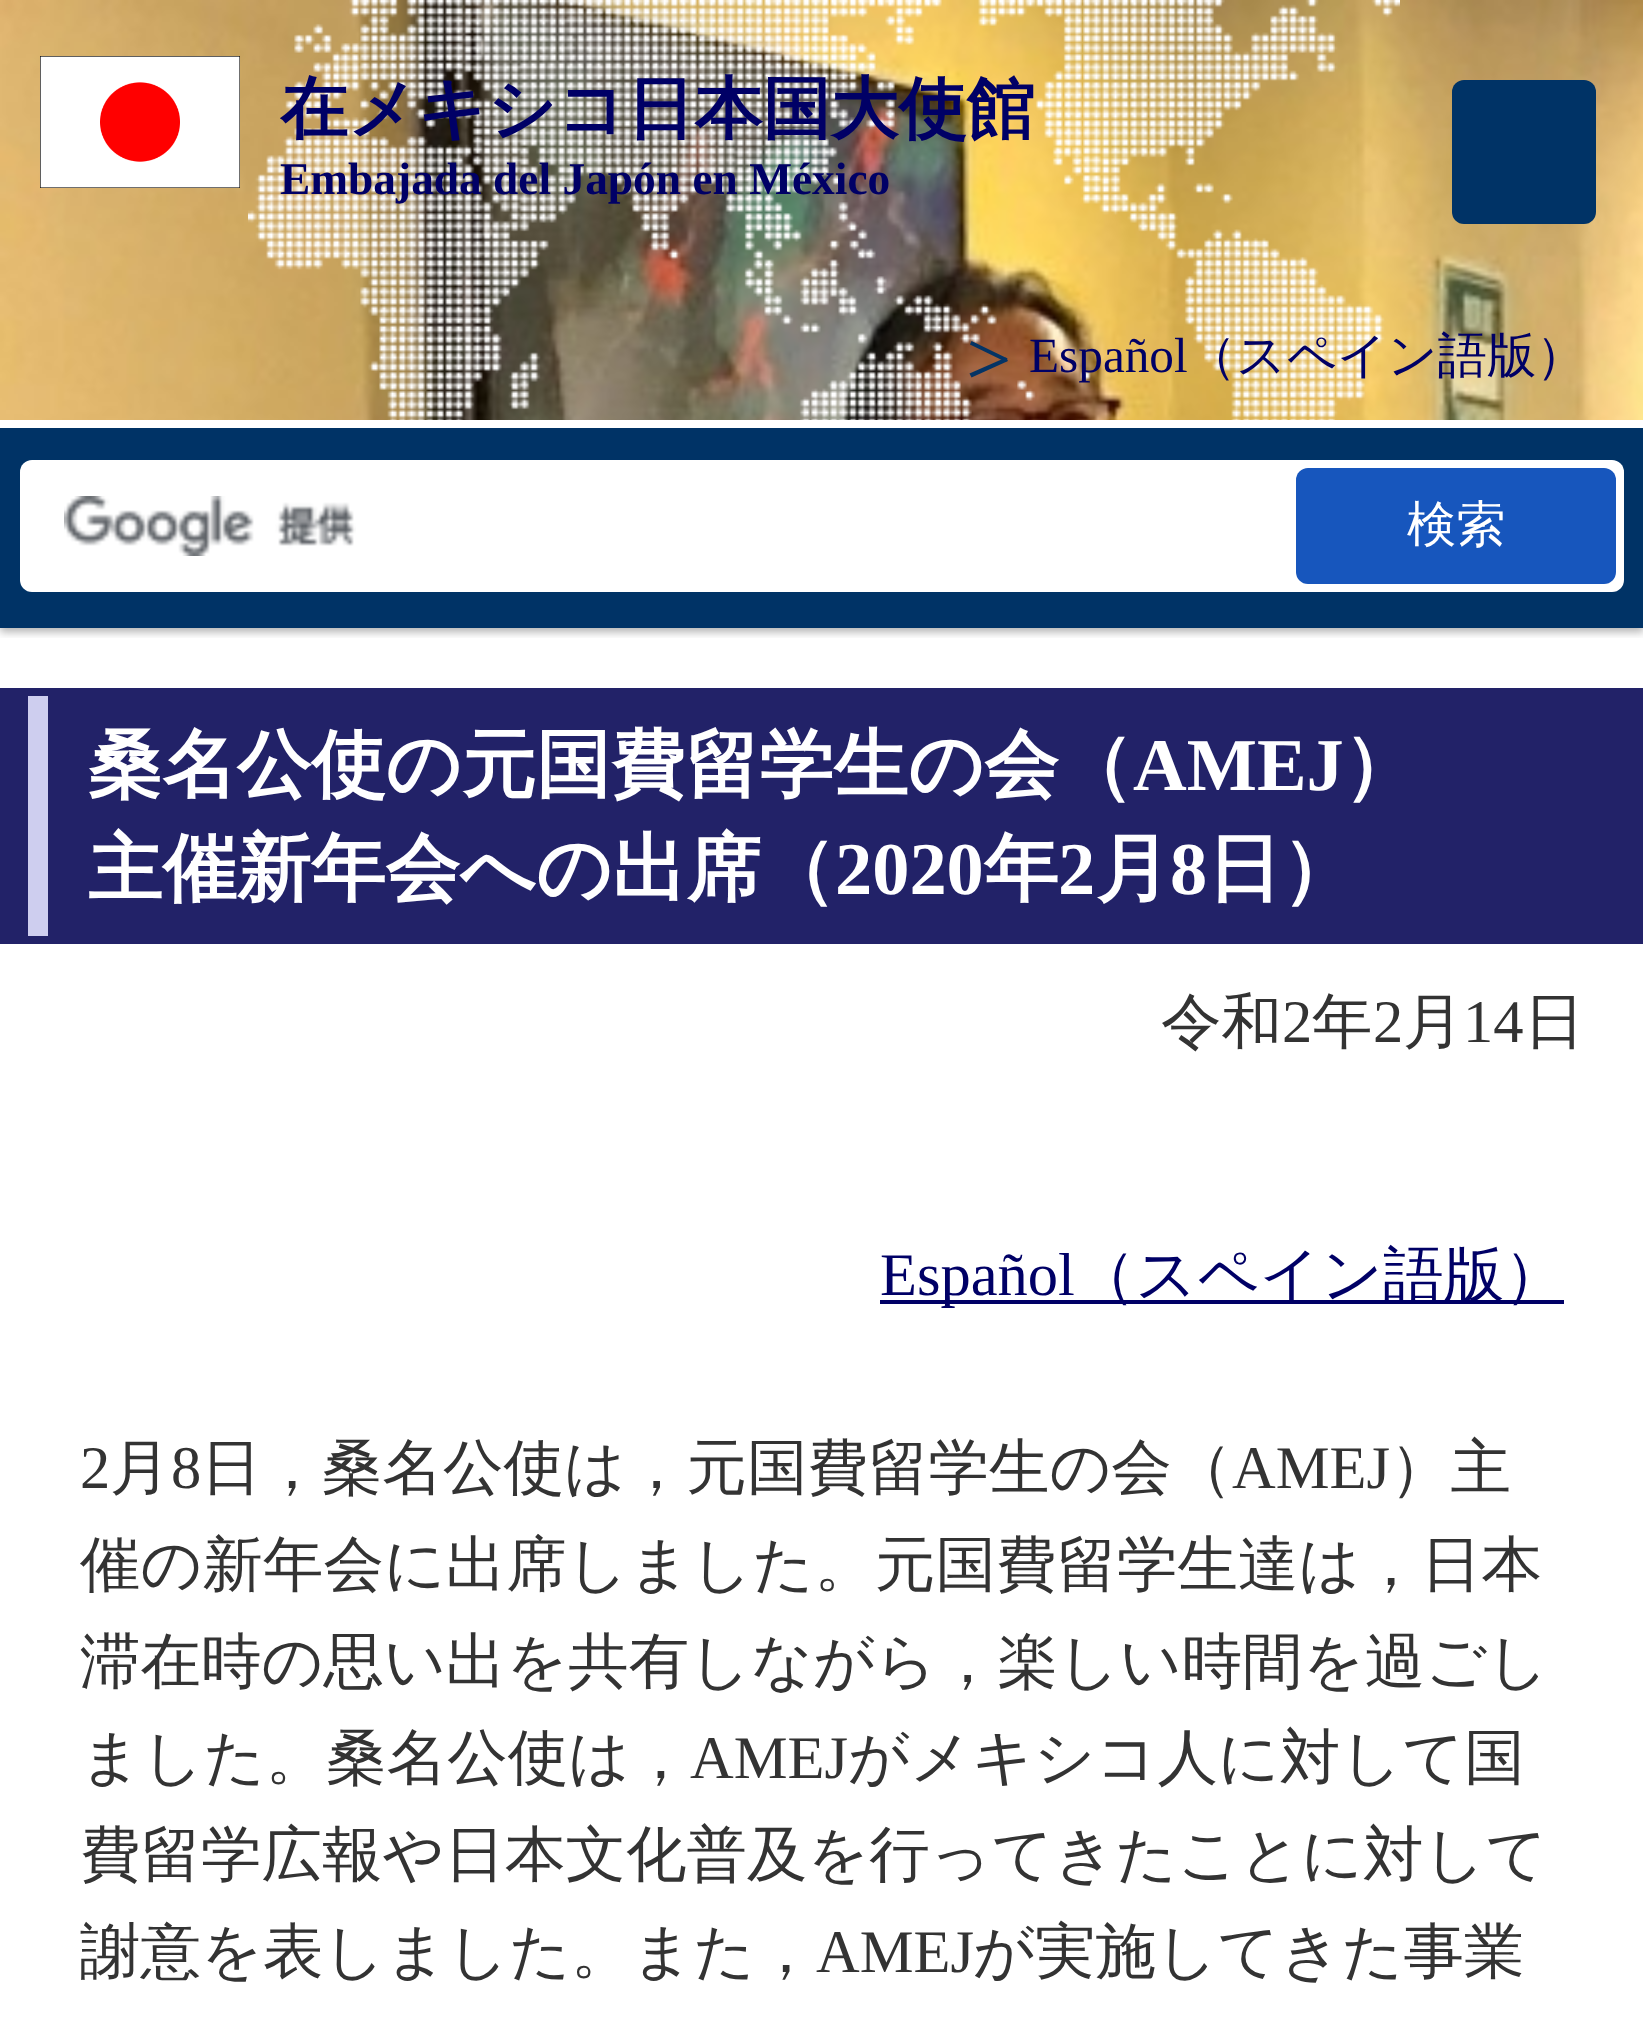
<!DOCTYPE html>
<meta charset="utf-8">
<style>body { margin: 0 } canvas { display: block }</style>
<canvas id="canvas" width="1643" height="2027"></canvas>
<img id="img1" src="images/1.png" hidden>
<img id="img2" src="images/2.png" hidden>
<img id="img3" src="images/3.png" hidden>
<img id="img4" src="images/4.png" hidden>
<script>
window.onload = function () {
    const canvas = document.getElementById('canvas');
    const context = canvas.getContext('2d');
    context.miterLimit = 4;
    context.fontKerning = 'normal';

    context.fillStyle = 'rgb(255, 255, 255)';
    context.fillRect(0, 0, 1643, 2027);
    context.drawImage(document.getElementById('img1'), 0, 0, 1643, 420);
    context.save();
    context.beginPath();
    context.rect(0, 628, 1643, 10);
    context.clip();
    context.fillStyle = 'rgba(0, 0, 0, 0.3)';
    context.filter = 'blur(4px)';
    context.beginPath();
    context.rect(0, 4, 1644, 628);
    context.fill();
    context.filter = 'none';
    context.restore();
    context.drawImage(document.getElementById('img2'), 248, 0, 1152, 420);
    context.drawImage(document.getElementById('img3'), 40, 56, 200, 132);
    context.fillStyle = 'rgb(0, 51, 102)';
    context.beginPath();
    context.roundRect(1452, 80, 144, 144, 12);
    context.fill();
    context.fillStyle = 'rgb(4, 52, 101)';
    context.beginPath();
    context.moveTo(1006, 362);
    context.lineTo(970, 344.5);
    context.lineTo(971.5, 341);
    context.lineTo(1007.5, 358.5);
    context.closePath();
    context.fill();
    context.beginPath();
    context.moveTo(1008, 361);
    context.lineTo(971.5, 377.5);
    context.lineTo(969.5, 373.5);
    context.lineTo(1006, 357.5);
    context.closePath();
    context.fill();
    context.fillStyle = 'rgb(0, 51, 102)';
    context.fillRect(0, 428, 1643, 200);
    context.fillStyle = 'rgb(255, 255, 255)';
    context.beginPath();
    context.roundRect(20, 460, 1604, 132, 12);
    context.fill();
    context.drawImage(document.getElementById('img4'), 64, 496, 292, 60);
    context.fillStyle = 'rgb(23, 86, 189)';
    context.beginPath();
    context.roundRect(1296, 468, 320, 116, 12);
    context.fill();
    context.fillStyle = 'rgb(34, 34, 104)';
    context.fillRect(0, 688, 1643, 256);
    context.fillStyle = 'rgb(206, 206, 239)';
    context.fillRect(28, 696, 20, 240);
    context.fillStyle = 'rgb(0, 0, 102)';
    context.fillRect(880, 1300, 684, 4);
    context.font = 'bold 68px WenQuanYi Zen Hei';
    context.fillText('在メキシコ日本国大使館', 280, 132);
    context.font = 'bold 45.4px Liberation Serif';
    context.fillText('Embajada del Japón en México', 280, 194);
    context.font = '49.25px Liberation Serif';
    context.fillText('Español', 1029, 372);
    context.font = '500 49.25px WenQuanYi Zen Hei';
    context.fillText('（スペイン語版）', 1187, 372);
    context.fillStyle = 'rgb(255, 255, 255)';
    context.fillText('検索', 1407, 541);
    context.font = 'bold 74.4px WenQuanYi Zen Hei';
    context.fillText('桑名公使の元国費留学生の会（', 88, 790);
    context.font = 'bold 74.4px Liberation Serif';
    context.fillText('AMEJ', 1133, 790);
    context.font = 'bold 74.4px WenQuanYi Zen Hei';
    context.fillText('）', 1343, 790);
    context.fillText('主催新年会への出席（', 88, 894);
    context.font = 'bold 74.4px Liberation Serif';
    context.fillText('2020', 835, 894);
    context.font = 'bold 74.4px WenQuanYi Zen Hei';
    context.fillText('年', 984, 894);
    context.font = 'bold 74.4px Liberation Serif';
    context.fillText('2', 1058, 894);
    context.font = 'bold 74.4px WenQuanYi Zen Hei';
    context.fillText('月', 1096, 894);
    context.font = 'bold 74.4px Liberation Serif';
    context.fillText('8', 1170, 894);
    context.font = 'bold 74.4px WenQuanYi Zen Hei';
    context.fillText('日）', 1207, 894);
    context.font = '500 60.5px WenQuanYi Zen Hei';
    context.fillStyle = 'rgb(51, 51, 51)';
    context.fillText('令和', 1161, 1042);
    context.font = '60.5px Liberation Serif';
    context.fillText('2', 1282, 1042);
    context.font = '500 60.5px WenQuanYi Zen Hei';
    context.fillText('年', 1312, 1042);
    context.font = '60.5px Liberation Serif';
    context.fillText('2', 1373, 1042);
    context.font = '500 60.5px WenQuanYi Zen Hei';
    context.fillText('月', 1403, 1042);
    context.font = '60.5px Liberation Serif';
    context.fillText('14', 1463, 1042);
    context.font = '500 60.5px WenQuanYi Zen Hei';
    context.fillText('日', 1524, 1042);
    context.font = '60.5px Liberation Serif';
    context.fillStyle = 'rgb(0, 0, 102)';
    context.fillText('Español', 880, 1295);
    context.font = '500 60.5px WenQuanYi Zen Hei';
    context.fillText('（スペイン語版）', 1075, 1295);
    context.font = '60.5px Liberation Serif';
    context.fillStyle = 'rgb(51, 51, 51)';
    context.fillText('2', 80, 1488);
    context.font = '500 60.5px WenQuanYi Zen Hei';
    context.fillText('月', 110, 1488);
    context.font = '60.5px Liberation Serif';
    context.fillText('8', 171, 1488);
    context.font = '500 60.5px WenQuanYi Zen Hei';
    context.fillText('日，桑名公使は，元国費留学生の会（', 201, 1488);
    context.font = '60.5px Liberation Serif';
    context.fillText('AMEJ', 1232, 1488);
    context.font = '500 60.5px WenQuanYi Zen Hei';
    context.fillText('）主', 1390, 1488);
    context.fillText('催の新年会に出席しました。元国費留学生達は，日本', 80, 1585);
    context.fillText('滞在時の思い出を共有しながら，楽しい時間を過ごし', 80, 1682);
    context.fillText('ました。桑名公使は，', 80, 1778);
    context.font = '60.5px Liberation Serif';
    context.fillText('AMEJ', 690, 1778);
    context.font = '500 60.5px WenQuanYi Zen Hei';
    context.fillText('がメキシコ人に対して国', 848, 1778);
    context.fillText('費留学広報や日本文化普及を行ってきたことに対して', 80, 1875);
    context.fillText('謝意を表しました。また，', 80, 1972);
    context.font = '60.5px Liberation Serif';
    context.fillText('AMEJ', 816, 1972);
    context.font = '500 60.5px WenQuanYi Zen Hei';
    context.fillText('が実施してきた事業', 973, 1972);
};
</script>
